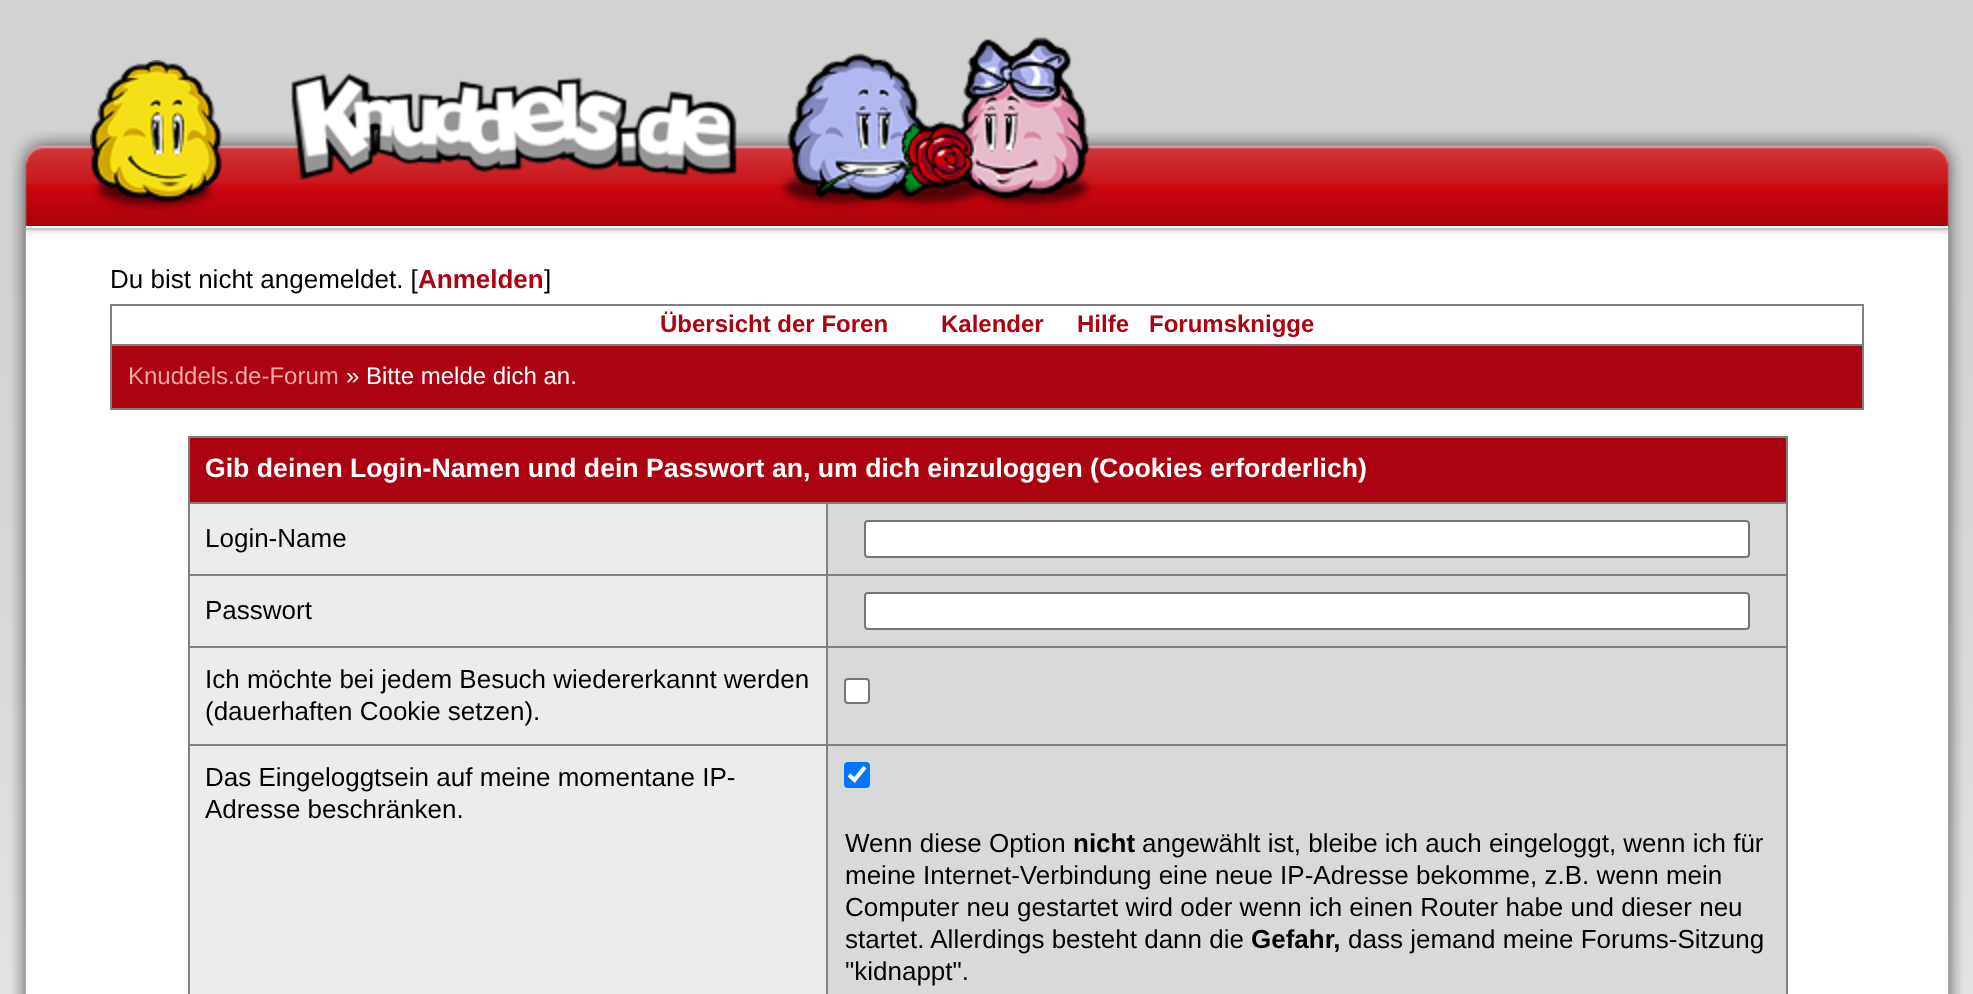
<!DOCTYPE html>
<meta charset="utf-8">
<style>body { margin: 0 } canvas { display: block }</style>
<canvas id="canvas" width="1973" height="994"></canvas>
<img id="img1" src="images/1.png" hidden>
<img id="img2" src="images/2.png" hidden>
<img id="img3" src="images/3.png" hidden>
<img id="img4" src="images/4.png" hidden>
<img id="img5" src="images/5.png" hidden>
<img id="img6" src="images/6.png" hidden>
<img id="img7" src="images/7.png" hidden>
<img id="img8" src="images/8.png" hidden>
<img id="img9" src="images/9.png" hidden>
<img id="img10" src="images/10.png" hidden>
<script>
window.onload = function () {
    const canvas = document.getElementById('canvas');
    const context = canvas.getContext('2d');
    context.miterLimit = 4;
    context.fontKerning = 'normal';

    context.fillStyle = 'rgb(255, 255, 255)';
    context.fillRect(0, 0, 1973, 994);
    context.drawImage(document.getElementById('img1'), 0, 0, 1973, 994);
    context.drawImage(document.getElementById('img2'), 11, 131, 47, 97);
    context.drawImage(document.getElementById('img3'), 58, 131, 1858, 95);
    context.drawImage(document.getElementById('img4'), 90, 60, 132, 151);
    context.drawImage(document.getElementById('img5'), 291, 73, 446, 107);
    context.drawImage(document.getElementById('img6'), 779, 36, 314, 173);
    context.drawImage(document.getElementById('img7'), 1916, 131, 47, 97);
    context.fillRect(26, 226, 1922, 2);
    context.drawImage(document.getElementById('img8'), 11, 228, 15, 766);
    context.drawImage(document.getElementById('img9'), 1948, 228, 15, 766);
    context.fillRect(26, 234, 1922, 760);
    context.drawImage(document.getElementById('img10'), 26, 228, 1922, 6);
    context.fillStyle = 'rgb(128, 128, 128)';
    context.fillRect(110, 304, 1754, 106);
    context.fillStyle = 'rgb(255, 255, 255)';
    context.fillRect(112, 306, 1750, 38);
    context.fillStyle = 'rgb(171, 3, 15)';
    context.fillRect(112, 346, 1750, 62);
    context.fillStyle = 'rgb(128, 128, 128)';
    context.fillRect(188, 436, 1600, 558);
    context.fillStyle = 'rgb(171, 3, 15)';
    context.fillRect(190, 438, 1596, 64);
    context.fillStyle = 'rgb(236, 236, 236)';
    context.fillRect(190, 504, 636, 70);
    context.fillStyle = 'rgb(217, 217, 217)';
    context.fillRect(828, 504, 958, 70);
    context.fillStyle = 'rgb(255, 255, 255)';
    context.beginPath();
    context.roundRect(865, 521, 884, 36, 3);
    context.fill();
    context.strokeStyle = 'rgb(118, 118, 118)';
    context.lineWidth = 2;
    context.stroke();
    context.fillStyle = 'rgb(236, 236, 236)';
    context.fillRect(190, 576, 636, 70);
    context.fillStyle = 'rgb(217, 217, 217)';
    context.fillRect(828, 576, 958, 70);
    context.fillStyle = 'rgb(255, 255, 255)';
    context.beginPath();
    context.roundRect(865, 593, 884, 36, 3);
    context.fill();
    context.stroke();
    context.fillStyle = 'rgb(236, 236, 236)';
    context.fillRect(190, 648, 636, 96);
    context.fillStyle = 'rgb(217, 217, 217)';
    context.fillRect(828, 648, 958, 96);
    context.fillStyle = 'rgb(255, 255, 255)';
    context.beginPath();
    context.roundRect(845, 679, 24, 24, 3);
    context.fill();
    context.stroke();
    context.fillStyle = 'rgb(236, 236, 236)';
    context.fillRect(190, 746, 636, 248);
    context.fillStyle = 'rgb(217, 217, 217)';
    context.fillRect(828, 746, 958, 248);
    context.fillStyle = 'rgb(0, 117, 255)';
    context.beginPath();
    context.roundRect(844, 762, 26, 26, 4);
    context.fill();
    context.beginPath();
    context.moveTo(849, 775);
    context.lineTo(854.5, 780);
    context.lineTo(865, 767);
    context.strokeStyle = 'rgb(255, 255, 255)';
    context.lineWidth = 4.2;
    context.stroke();
    context.font = '26px Liberation Sans';
    context.fillStyle = 'rgb(0, 0, 0)';
    context.fillText('Du bist nicht angemeldet. [', 110, 288);
    context.font = 'bold 26px Liberation Sans';
    context.fillStyle = 'rgb(171, 3, 15)';
    context.fillText('Anmelden', 418, 288);
    context.font = '26px Liberation Sans';
    context.fillStyle = 'rgb(0, 0, 0)';
    context.fillText(']', 544, 288);
    context.font = 'bold 24px Liberation Sans';
    context.fillStyle = 'rgb(171, 3, 15)';
    context.fillText('Übersicht der Foren', 660, 332);
    context.fillText('Kalender', 941, 332);
    context.fillText('Hilfe', 1077, 332);
    context.fillText('Forumsknigge', 1149, 332);
    context.font = '24px Liberation Sans';
    context.fillStyle = 'rgb(236, 167, 167)';
    context.fillText('Knuddels.de-Forum', 128, 384);
    context.fillStyle = 'rgb(255, 255, 255)';
    context.fillText('» Bitte melde dich an.', 346, 384);
    context.font = 'bold 26.65px Liberation Sans';
    context.fillText('Gib deinen Login-Namen und dein Passwort an, um dich einzuloggen (Cookies erforderlich)', 205, 477);
    context.font = '26px Liberation Sans';
    context.fillStyle = 'rgb(0, 0, 0)';
    context.fillText('Login-Name', 205, 547);
    context.fillText('Passwort', 205, 619);
    context.fillText('Ich möchte bei jedem Besuch wiedererkannt werden', 205, 688);
    context.fillText('(dauerhaften Cookie setzen).', 205, 720);
    context.fillText('Das Eingeloggtsein auf meine momentane IP-', 205, 786);
    context.fillText('Adresse beschränken.', 205, 818);
    context.fillText('Wenn diese Option', 845, 852);
    context.font = 'bold 26px Liberation Sans';
    context.fillText('nicht', 1073, 852);
    context.font = '26px Liberation Sans';
    context.fillText('angewählt ist, bleibe ich auch eingeloggt, wenn ich für', 1142, 852);
    context.fillText('meine Internet-Verbindung eine neue IP-Adresse bekomme, z.B. wenn mein', 845, 884);
    context.fillText('Computer neu gestartet wird oder wenn ich einen Router habe und dieser neu', 845, 916);
    context.fillText('startet. Allerdings besteht dann die', 845, 948);
    context.font = 'bold 26px Liberation Sans';
    context.fillText('Gefahr,', 1251, 948);
    context.font = '26px Liberation Sans';
    context.fillText('dass jemand meine Forums-Sitzung', 1348, 948);
    context.fillText('"kidnappt".', 845, 980);
};
</script>
